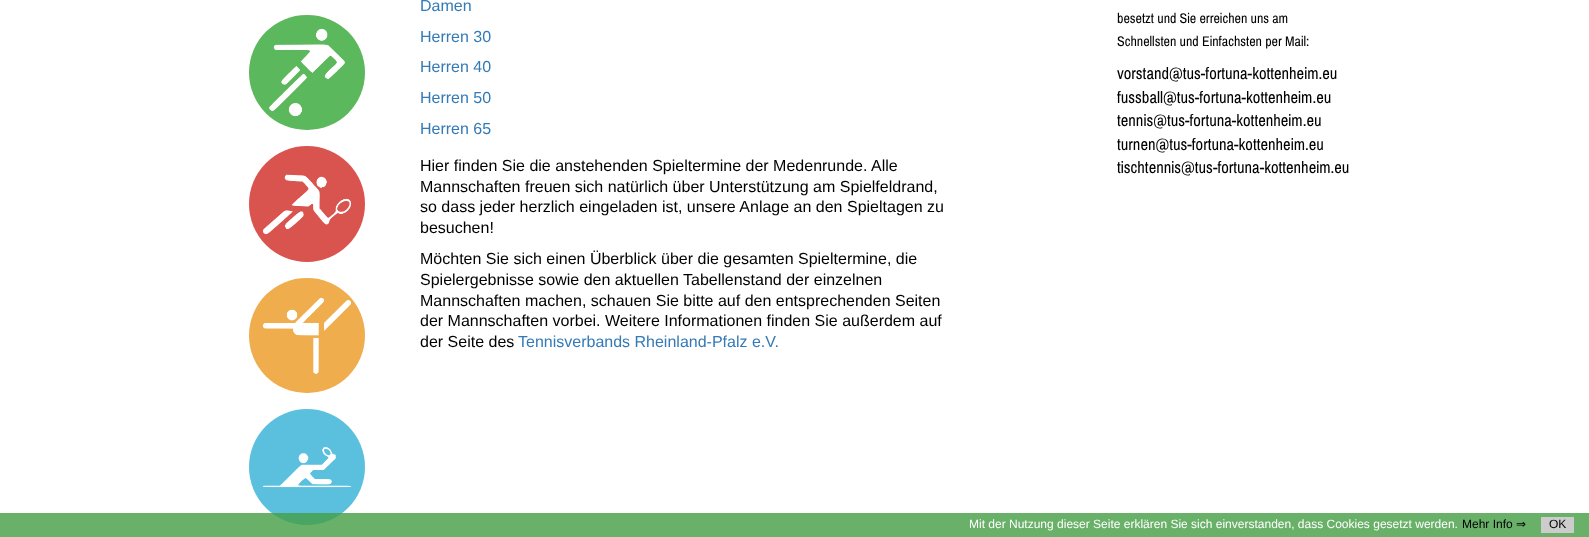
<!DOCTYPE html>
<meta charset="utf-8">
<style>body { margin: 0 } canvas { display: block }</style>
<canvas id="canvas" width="1589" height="537"></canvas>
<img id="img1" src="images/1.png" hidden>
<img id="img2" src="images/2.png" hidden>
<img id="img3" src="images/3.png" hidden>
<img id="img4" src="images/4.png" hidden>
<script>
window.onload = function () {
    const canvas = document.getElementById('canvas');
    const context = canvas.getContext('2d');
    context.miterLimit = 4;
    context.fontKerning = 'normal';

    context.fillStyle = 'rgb(255, 255, 255)';
    context.fillRect(0, 0, 1589, 537);
    context.fillStyle = 'rgb(92, 184, 92)';
    context.beginPath();
    context.roundRect(249, 15, 116, 115, 57.5);
    context.fill();
    context.drawImage(document.getElementById('img1'), 269, 29, 76, 88);
    context.fillStyle = 'rgb(217, 83, 79)';
    context.beginPath();
    context.arc(307, 204, 58, 0, 2 * Math.PI);
    context.fill();
    context.drawImage(document.getElementById('img2'), 263, 174, 88, 61);
    context.fillStyle = 'rgb(240, 173, 78)';
    context.beginPath();
    context.roundRect(249, 278, 116, 115, 57.5);
    context.fill();
    context.drawImage(document.getElementById('img3'), 263, 297, 88, 77);
    context.fillStyle = 'rgb(91, 192, 222)';
    context.beginPath();
    context.arc(307, 467, 58, 0, 2 * Math.PI);
    context.fill();
    context.drawImage(document.getElementById('img4'), 263, 447, 88, 41);
    context.fillStyle = 'rgba(68, 157, 68, 0.8)';
    context.fillRect(0, 513, 1589, 24);
    context.fillStyle = 'rgb(204, 204, 204)';
    context.fillRect(1541, 517, 33, 16);
    context.font = '16px Arimo';
    context.fillStyle = 'rgb(51, 122, 183)';
    context.fillText('Damen', 420, 11);
    context.fillText('Herren 30', 420, 42);
    context.fillText('Herren 40', 420, 72);
    context.fillText('Herren 50', 420, 103);
    context.fillText('Herren 65', 420, 134);
    context.fillStyle = 'rgb(0, 0, 0)';
    context.fillText('Hier finden Sie die anstehenden Spieltermine der Medenrunde. Alle', 420, 171);
    context.fillText('Mannschaften freuen sich natürlich über Unterstützung am Spielfeldrand,', 420, 192);
    context.fillText('so dass jeder herzlich eingeladen ist, unsere Anlage an den Spieltagen zu', 420, 212);
    context.fillText('besuchen!', 420, 233);
    context.fillText('Möchten Sie sich einen Überblick über die gesamten Spieltermine, die', 420, 264);
    context.fillText('Spielergebnisse sowie den aktuellen Tabellenstand der einzelnen', 420, 285);
    context.fillText('Mannschaften machen, schauen Sie bitte auf den entsprechenden Seiten', 420, 306);
    context.fillText('der Mannschaften vorbei. Weitere Informationen finden Sie außerdem auf', 420, 326);
    context.fillText('der Seite des', 420, 347);
    context.fillStyle = 'rgb(51, 122, 183)';
    context.fillText('Tennisverbands Rheinland-Pfalz e.V.', 518, 347);
    context.font = '15.25px Pragati Narrow';
    context.fillStyle = 'rgb(0, 0, 0)';
    context.fillText('besetzt und Sie erreichen uns am', 1117, 23);
    context.fillText('Schnellsten und Einfachsten per Mail:', 1117, 46);
    context.font = '18px Pragati Narrow';
    context.fillText('vorstand@tus-fortuna-kottenheim.eu', 1117, 79);
    context.fillText('fussball@tus-fortuna-kottenheim.eu', 1117, 103);
    context.fillText('tennis@tus-fortuna-kottenheim.eu', 1117, 126);
    context.fillText('turnen@tus-fortuna-kottenheim.eu', 1117, 150);
    context.fillText('tischtennis@tus-fortuna-kottenheim.eu', 1117, 173);
    context.font = '12px Arimo';
    context.fillStyle = 'rgb(255, 255, 255)';
    context.fillText('Mit der Nutzung dieser Seite erklären Sie sich einverstanden, dass Cookies gesetzt werden.', 969, 528);
    context.fillStyle = 'rgb(0, 0, 0)';
    context.fillText('Mehr Info', 1462, 528);
    context.font = '12px DejaVu Sans';
    context.fillText('⇒', 1516, 528);
    context.font = '12px Arimo';
    context.fillText('OK', 1549, 528);
};
</script>
